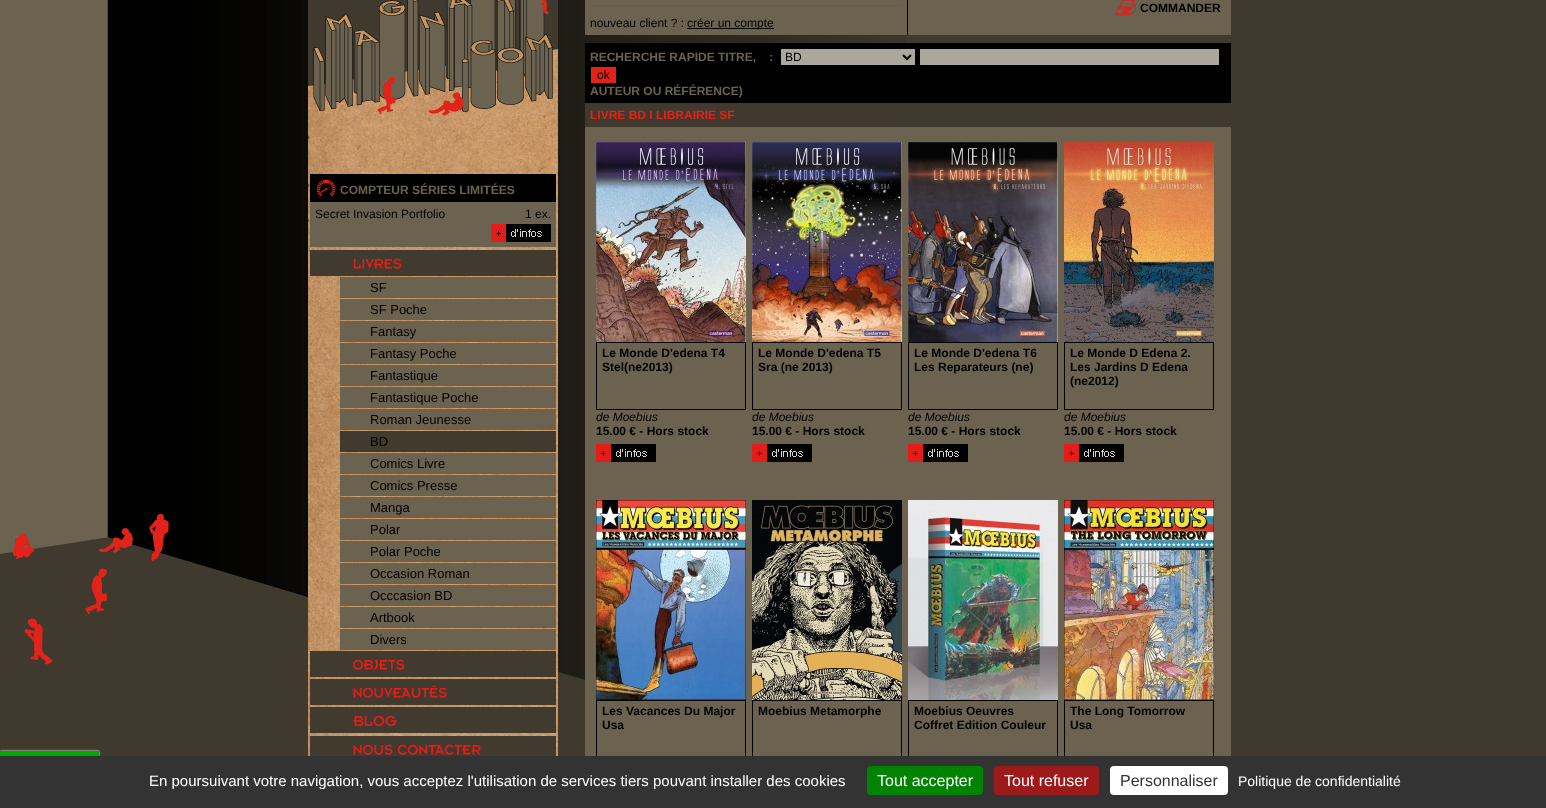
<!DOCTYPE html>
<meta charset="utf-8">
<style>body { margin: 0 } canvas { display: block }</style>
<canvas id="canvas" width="1546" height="808"></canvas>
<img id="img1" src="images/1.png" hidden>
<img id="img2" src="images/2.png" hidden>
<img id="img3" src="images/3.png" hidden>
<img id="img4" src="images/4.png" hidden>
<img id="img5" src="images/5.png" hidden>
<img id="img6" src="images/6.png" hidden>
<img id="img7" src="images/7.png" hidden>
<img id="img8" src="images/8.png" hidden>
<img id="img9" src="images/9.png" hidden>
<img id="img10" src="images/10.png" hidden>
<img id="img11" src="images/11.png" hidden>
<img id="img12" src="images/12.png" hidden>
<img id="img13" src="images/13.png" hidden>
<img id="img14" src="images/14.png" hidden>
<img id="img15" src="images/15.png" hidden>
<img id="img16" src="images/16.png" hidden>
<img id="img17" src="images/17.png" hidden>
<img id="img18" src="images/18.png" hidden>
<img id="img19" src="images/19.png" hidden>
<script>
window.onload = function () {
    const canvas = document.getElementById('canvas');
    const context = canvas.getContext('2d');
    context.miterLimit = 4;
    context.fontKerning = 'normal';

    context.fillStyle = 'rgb(64, 58, 46)';
    context.fillRect(0, 0, 1546, 808);
    context.drawImage(document.getElementById('img1'), 0, 0, 906, 756);
    context.drawImage(document.getElementById('img2'), 308, 0, 250, 172);
    context.drawImage(document.getElementById('img3'), 308, 172, 250, 584);
    context.fillStyle = 'rgb(0, 0, 0)';
    context.fillRect(310, 174, 246, 28);
    context.drawImage(document.getElementById('img4'), 316, 179, 20, 18);
    context.fillStyle = 'rgb(107, 99, 80)';
    context.fillRect(310, 202, 246, 45);
    context.drawImage(document.getElementById('img5'), 491, 224, 60, 18);
    context.drawImage(document.getElementById('img6'), 310, 250, 246, 26);
    context.fillRect(340, 277, 216, 21);
    context.fillRect(340, 299, 216, 21);
    context.fillRect(340, 321, 216, 21);
    context.fillRect(340, 343, 216, 21);
    context.fillRect(340, 365, 216, 21);
    context.fillRect(340, 387, 216, 21);
    context.fillRect(340, 409, 216, 21);
    context.fillStyle = 'rgb(65, 58, 47)';
    context.fillRect(340, 431, 216, 21);
    context.fillStyle = 'rgb(107, 99, 80)';
    context.fillRect(340, 453, 216, 21);
    context.fillRect(340, 475, 216, 21);
    context.fillRect(340, 497, 216, 21);
    context.fillRect(340, 519, 216, 21);
    context.fillRect(340, 541, 216, 21);
    context.fillRect(340, 563, 216, 21);
    context.fillRect(340, 585, 216, 21);
    context.fillRect(340, 607, 216, 21);
    context.fillRect(340, 629, 216, 21);
    context.drawImage(document.getElementById('img7'), 310, 651, 246, 26);
    context.drawImage(document.getElementById('img8'), 310, 679, 246, 26);
    context.drawImage(document.getElementById('img9'), 310, 707, 246, 26);
    context.drawImage(document.getElementById('img10'), 310, 736, 246, 20);
    context.fillRect(585, 0, 646, 35);
    context.drawImage(document.getElementById('img11'), 1115, 0, 21, 16);
    context.fillStyle = 'rgb(0, 0, 0)';
    context.fillRect(907, 0, 1, 35);
    context.beginPath();
    context.moveTo(590, 5.5);
    context.lineTo(902, 5.5);
    context.strokeStyle = 'rgb(227, 34, 25)';
    context.setLineDash([1, 1]);
    context.stroke();
    context.fillRect(687, 28, 87, 1);
    context.fillRect(585, 43, 646, 60);
    context.fillStyle = 'rgb(172, 167, 156)';
    context.fillRect(781, 49, 134, 16);
    context.beginPath();
    context.moveTo(903, 55);
    context.lineTo(907, 59);
    context.lineTo(911, 55);
    context.strokeStyle = 'rgb(0, 0, 0)';
    context.lineWidth = 2;
    context.setLineDash([]);
    context.stroke();
    context.fillRect(920, 49, 299, 16);
    context.fillStyle = 'rgb(227, 34, 25)';
    context.fillRect(591, 67, 25, 16);
    context.fillStyle = 'rgb(64, 58, 46)';
    context.fillRect(585, 103, 321, 24);
    context.fillStyle = 'rgb(107, 99, 80)';
    context.fillRect(585, 127, 646, 629);
    context.drawImage(document.getElementById('img12'), 596, 142, 150, 200);
    context.lineWidth = 1;
    context.strokeRect(596.5, 342.5, 149, 67);
    context.drawImage(document.getElementById('img5'), 596, 444, 60, 18);
    context.drawImage(document.getElementById('img13'), 752, 142, 150, 200);
    context.strokeRect(752.5, 342.5, 149, 67);
    context.drawImage(document.getElementById('img5'), 752, 444, 60, 18);
    context.drawImage(document.getElementById('img14'), 908, 142, 150, 200);
    context.strokeRect(908.5, 342.5, 149, 67);
    context.drawImage(document.getElementById('img5'), 908, 444, 60, 18);
    context.drawImage(document.getElementById('img15'), 1064, 142, 150, 200);
    context.strokeRect(1064.5, 342.5, 149, 67);
    context.drawImage(document.getElementById('img5'), 1064, 444, 60, 18);
    context.drawImage(document.getElementById('img16'), 596, 500, 150, 200);
    context.strokeRect(596.5, 700.5, 149, 67);
    context.drawImage(document.getElementById('img17'), 752, 500, 150, 200);
    context.strokeRect(752.5, 700.5, 149, 67);
    context.drawImage(document.getElementById('img18'), 908, 500, 150, 200);
    context.strokeRect(908.5, 700.5, 149, 67);
    context.drawImage(document.getElementById('img19'), 1064, 500, 150, 200);
    context.strokeRect(1064.5, 700.5, 149, 67);
    context.fillStyle = 'rgb(85, 85, 85)';
    context.filter = 'blur(1px)';
    context.beginPath();
    context.rect(0, 752, 99, 5);
    context.fill();
    context.filter = 'none';
    context.fillStyle = 'rgb(255, 255, 255)';
    context.filter = 'blur(1px)';
    context.beginPath();
    context.rect(0, 751, 99, 5);
    context.fill();
    context.filter = 'none';
    context.fillStyle = 'rgb(0, 170, 0)';
    context.fillRect(0, 751, 99, 5);
    context.fillStyle = 'rgb(51, 51, 51)';
    context.fillRect(0, 756, 1546, 52);
    context.fillStyle = 'rgb(0, 131, 0)';
    context.beginPath();
    context.roundRect(867, 766, 116, 29, 4);
    context.fill();
    context.fillStyle = 'rgb(156, 26, 26)';
    context.beginPath();
    context.roundRect(994, 766, 105, 29, 4);
    context.fill();
    context.fillStyle = 'rgb(255, 255, 255)';
    context.beginPath();
    context.roundRect(1110, 766, 118, 29, 4);
    context.fill();
    context.font = 'bold 12px Liberation Sans';
    context.fillStyle = 'rgb(107, 99, 80)';
    context.fillText('COMPTEUR SÉRIES LIMITÉES', 340, 194);
    context.font = '12px Liberation Sans';
    context.fillStyle = 'rgb(0, 0, 0)';
    context.fillText('Secret Invasion Portfolio', 315, 218);
    context.fillText('1 ex.', 525, 218);
    context.font = '13px Liberation Sans';
    context.fillText('SF', 370, 292);
    context.fillText('SF Poche', 370, 314);
    context.fillText('Fantasy', 370, 336);
    context.fillText('Fantasy Poche', 370, 358);
    context.fillText('Fantastique', 370, 380);
    context.fillText('Fantastique Poche', 370, 402);
    context.fillText('Roman Jeunesse', 370, 424);
    context.fillText('BD', 370, 446);
    context.fillText('Comics Livre', 370, 468);
    context.fillText('Comics Presse', 370, 490);
    context.fillText('Manga', 370, 512);
    context.fillText('Polar', 370, 534);
    context.fillText('Polar Poche', 370, 556);
    context.fillText('Occasion Roman', 370, 578);
    context.fillText('Occcasion BD', 370, 600);
    context.fillText('Artbook', 370, 622);
    context.fillText('Divers', 370, 644);
    context.font = 'bold 12px Liberation Sans';
    context.fillText('COMMANDER', 1140, 12);
    context.font = '12px Liberation Sans';
    context.fillText('nouveau client ? :', 590, 27);
    context.fillText('créer un compte', 687, 27);
    context.font = 'bold 12px Liberation Sans';
    context.fillStyle = 'rgb(107, 99, 80)';
    context.fillText('RECHERCHE RAPIDE TITRE,    :', 590, 61);
    context.font = '12px Liberation Sans';
    context.fillStyle = 'rgb(0, 0, 0)';
    context.fillText('BD', 785, 61);
    context.fillText('ok', 597, 79);
    context.font = 'bold 12px Liberation Sans';
    context.fillStyle = 'rgb(107, 99, 80)';
    context.fillText('AUTEUR OU RÉFÉRENCE)', 590, 95);
    context.fillStyle = 'rgb(227, 34, 25)';
    context.fillText('LIVRE BD I LIBRAIRIE SF', 590, 119);
    context.fillStyle = 'rgb(0, 0, 0)';
    context.fillText('Le Monde D\'edena T4', 602, 357);
    context.fillText('Stel(ne2013)', 602, 371);
    context.font = 'italic 12px Liberation Sans';
    context.fillText('de Moebius', 596, 421);
    context.font = 'bold 12px Liberation Sans';
    context.fillText('15.00 € - Hors stock', 596, 435);
    context.fillText('Le Monde D\'edena T5', 758, 357);
    context.fillText('Sra (ne 2013)', 758, 371);
    context.font = 'italic 12px Liberation Sans';
    context.fillText('de Moebius', 752, 421);
    context.font = 'bold 12px Liberation Sans';
    context.fillText('15.00 € - Hors stock', 752, 435);
    context.fillText('Le Monde D\'edena T6', 914, 357);
    context.fillText('Les Reparateurs (ne)', 914, 371);
    context.font = 'italic 12px Liberation Sans';
    context.fillText('de Moebius', 908, 421);
    context.font = 'bold 12px Liberation Sans';
    context.fillText('15.00 € - Hors stock', 908, 435);
    context.fillText('Le Monde D Edena 2.', 1070, 357);
    context.fillText('Les Jardins D Edena', 1070, 371);
    context.fillText('(ne2012)', 1070, 385);
    context.font = 'italic 12px Liberation Sans';
    context.fillText('de Moebius', 1064, 421);
    context.font = 'bold 12px Liberation Sans';
    context.fillText('15.00 € - Hors stock', 1064, 435);
    context.fillText('Les Vacances Du Major', 602, 715);
    context.fillText('Usa', 602, 729);
    context.fillText('Moebius Metamorphe', 758, 715);
    context.fillText('Moebius Oeuvres', 914, 715);
    context.fillText('Coffret Edition Couleur', 914, 729);
    context.fillText('The Long Tomorrow', 1070, 715);
    context.fillText('Usa', 1070, 729);
    context.save();
    context.beginPath();
    context.rect(139, 772, 717, 17);
    context.clip();
    context.font = '15px Liberation Sans';
    context.fillStyle = 'rgb(255, 255, 255)';
    context.fillText('En poursuivant votre navigation, vous acceptez l\'utilisation de services tiers pouvant installer des cookies', 149, 786);
    context.restore();
    context.font = '16px Liberation Sans';
    context.fillStyle = 'rgb(255, 255, 255)';
    context.fillText('Tout accepter', 877, 786);
    context.fillText('Tout refuser', 1004, 786);
    context.fillStyle = 'rgb(51, 51, 51)';
    context.fillText('Personnaliser', 1120, 786);
    context.font = '14px Liberation Sans';
    context.fillStyle = 'rgb(255, 255, 255)';
    context.fillText('Politique de confidentialité', 1238, 786);
};
</script>
